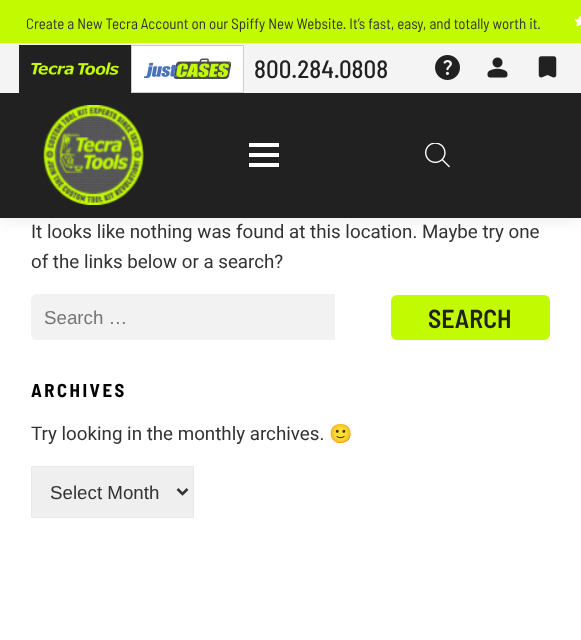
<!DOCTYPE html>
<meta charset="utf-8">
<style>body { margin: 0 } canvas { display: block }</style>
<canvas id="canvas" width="581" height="640"></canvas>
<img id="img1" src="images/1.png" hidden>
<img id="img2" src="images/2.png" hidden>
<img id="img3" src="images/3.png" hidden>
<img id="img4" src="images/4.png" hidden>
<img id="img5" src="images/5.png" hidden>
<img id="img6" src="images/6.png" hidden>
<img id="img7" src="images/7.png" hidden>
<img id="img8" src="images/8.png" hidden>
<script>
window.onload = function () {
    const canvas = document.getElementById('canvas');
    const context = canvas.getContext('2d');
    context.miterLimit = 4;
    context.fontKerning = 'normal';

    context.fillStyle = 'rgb(255, 255, 255)';
    context.fillRect(0, 0, 581, 640);
    context.fillStyle = 'rgba(50, 50, 50, 0.06)';
    context.filter = 'blur(6px)';
    context.beginPath();
    context.rect(0, 6, 581, 218);
    context.fill();
    context.filter = 'none';
    context.fillStyle = 'rgb(194, 250, 1)';
    context.fillRect(0, 0, 581, 43);
    context.drawImage(document.getElementById('img1'), 574, 16, 7, 11);
    context.fillStyle = 'rgb(244, 244, 244)';
    context.fillRect(0, 43, 581, 50);
    context.fillStyle = 'rgb(33, 33, 33)';
    context.fillRect(19, 45, 112, 48);
    context.drawImage(document.getElementById('img2'), 31, 62, 88, 13);
    context.fillStyle = 'rgb(255, 255, 255)';
    context.beginPath();
    context.rect(131.5, 45.5, 112, 47);
    context.fill();
    context.strokeStyle = 'rgb(204, 204, 204)';
    context.stroke();
    context.drawImage(document.getElementById('img3'), 144, 58, 87, 21);
    context.drawImage(document.getElementById('img4'), 435, 55, 25, 25);
    context.drawImage(document.getElementById('img5'), 487, 57, 21, 21);
    context.drawImage(document.getElementById('img6'), 538, 56, 19, 22);
    context.fillStyle = 'rgb(33, 33, 33)';
    context.fillRect(0, 93, 581, 125);
    context.drawImage(document.getElementById('img7'), 43, 105, 101, 100);
    context.fillStyle = 'rgb(255, 255, 255)';
    context.fillRect(249, 153, 30, 4);
    context.fillRect(249, 143, 30, 4);
    context.fillRect(249, 163, 30, 4);
    context.drawImage(document.getElementById('img8'), 425, 143, 25, 25);
    context.fillStyle = 'rgb(242, 242, 242)';
    context.beginPath();
    context.roundRect(31, 294, 304, 46, [6, 0, 0, 6]);
    context.fill();
    context.fillStyle = 'rgb(194, 250, 1)';
    context.beginPath();
    context.roundRect(391, 295, 159, 45, 6);
    context.fill();
    context.fillStyle = 'rgb(239, 239, 239)';
    context.beginPath();
    context.rect(31.5, 466.5, 162, 51);
    context.fill();
    context.strokeStyle = 'rgb(233, 233, 233)';
    context.stroke();
    context.beginPath();
    context.moveTo(177.5, 489);
    context.lineTo(182.5, 494);
    context.lineTo(187.5, 489);
    context.strokeStyle = 'rgb(51, 51, 51)';
    context.lineWidth = 2.5;
    context.stroke();
    context.font = '15px Barlow Semi Condensed';
    context.fillStyle = 'rgb(51, 51, 51)';
    context.fillText('Create a New Tecra Account on our Spiffy New Website. It’s fast, easy, and totally worth it.', 26, 29);
    context.font = '500 25px Barlow Semi Condensed';
    context.fillStyle = 'rgb(33, 33, 33)';
    context.fillText('800.284.0808', 254, 78);
    context.font = '18.75px Roboto';
    context.fillStyle = 'rgb(51, 51, 51)';
    context.fillText('It looks like nothing was found at this location. Maybe try one', 31, 238);
    context.fillText('of the links below or a search?', 31, 268);
    context.font = '18.75px Liberation Sans';
    context.fillStyle = 'rgb(117, 117, 117)';
    context.fillText('Search …', 44, 324);
    context.font = '600 26px Barlow Semi Condensed';
    context.fillStyle = 'rgb(33, 33, 33)';
    context.fillText('SEARCH', 428, 328);
    context.letterSpacing = '2.5px';
    context.font = 'bold 18.75px Barlow Semi Condensed';
    context.fillStyle = 'rgb(0, 0, 0)';
    context.fillText('ARCHIVES', 31, 397);
    context.letterSpacing = '0px';
    context.font = '18.75px Roboto';
    context.fillStyle = 'rgb(51, 51, 51)';
    context.fillText('Try looking in the monthly archives.', 31, 440);
    context.font = '18.75px Noto Color Emoji';
    context.fillText('🙂', 329, 440);
    context.font = '18.75px Liberation Sans';
    context.fillText('Select Month', 50, 499);
};
</script>
